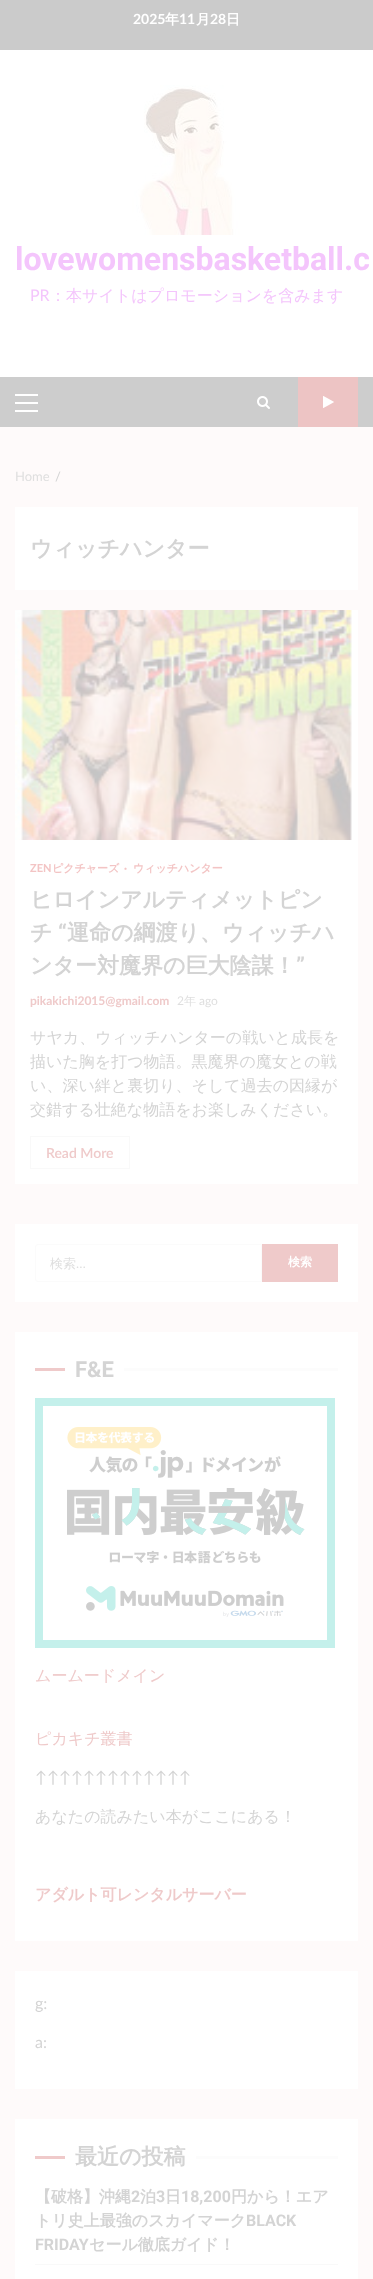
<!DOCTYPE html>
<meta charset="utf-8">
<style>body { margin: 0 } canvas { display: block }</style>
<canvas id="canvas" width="373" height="2279"></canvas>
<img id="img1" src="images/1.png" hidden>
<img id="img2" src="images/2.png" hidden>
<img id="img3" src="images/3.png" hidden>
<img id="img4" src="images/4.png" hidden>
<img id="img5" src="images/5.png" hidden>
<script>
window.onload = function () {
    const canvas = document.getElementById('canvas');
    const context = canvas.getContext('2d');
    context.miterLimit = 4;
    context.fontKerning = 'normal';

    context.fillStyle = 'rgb(254, 250, 250)';
    context.fillRect(0, 0, 373, 2279);
    context.fillStyle = 'rgb(255, 255, 255)';
    context.fillRect(0, 50, 373, 327);
    context.fillStyle = 'rgb(203, 203, 203)';
    context.fillRect(0, 0, 373, 50);
    context.drawImage(document.getElementById('img1'), 132, 85, 108, 150);
    context.fillStyle = 'rgb(205, 205, 205)';
    context.fillRect(0, 377, 373, 50);
    context.fillStyle = 'rgb(255, 255, 255)';
    context.fillRect(15, 402, 23, 2);
    context.fillRect(15, 394, 23, 2);
    context.fillRect(15, 410, 23, 2);
    context.drawImage(document.getElementById('img2'), 257, 396, 13, 13);
    context.fillStyle = 'rgb(237, 196, 196)';
    context.fillRect(298, 377, 60, 50);
    context.drawImage(document.getElementById('img3'), 323, 396, 11, 12);
    context.fillStyle = 'rgb(255, 255, 255)';
    context.fillRect(15, 507, 343, 83);
    context.fillRect(15, 840, 343, 344);
    context.drawImage(document.getElementById('img4'), 15, 610, 343, 230);
    context.strokeStyle = 'rgb(249, 249, 249)';
    context.strokeRect(30.5, 1136.5, 99, 32);
    context.fillRect(15, 1224, 343, 78);
    context.beginPath();
    context.roundRect(35.5, 1244.5, 226, 37, [2.5, 0, 0, 2.5]);
    context.strokeStyle = 'rgb(251, 251, 251)';
    context.stroke();
    context.fillStyle = 'rgb(239, 202, 202)';
    context.fillRect(262, 1244, 76, 38);
    context.fillStyle = 'rgb(255, 255, 255)';
    context.fillRect(15, 1332, 343, 609);
    context.fillStyle = 'rgb(239, 202, 202)';
    context.fillRect(35, 1368, 30, 3);
    context.fillStyle = 'rgb(252, 252, 252)';
    context.fillRect(124, 1368, 214, 3);
    context.drawImage(document.getElementById('img5'), 35, 1398, 300, 250);
    context.fillStyle = 'rgb(255, 255, 255)';
    context.fillRect(15, 1971, 343, 118);
    context.fillRect(15, 2119, 343, 160);
    context.fillStyle = 'rgb(239, 202, 202)';
    context.fillRect(35, 2156, 30, 3);
    context.fillStyle = 'rgb(252, 252, 252)';
    context.fillRect(196, 2156, 142, 3);
    context.fillStyle = 'rgb(249, 249, 249)';
    context.fillRect(35, 2264, 303, 1);
    context.font = 'bold 14px Lato';
    context.fillStyle = 'rgb(255, 255, 255)';
    context.fillText('2025', 133, 24);
    context.font = 'bold 14px WenQuanYi Zen Hei';
    context.fillText('年', 165, 24);
    context.font = 'bold 14px Lato';
    context.fillText('11', 179, 24);
    context.font = 'bold 14px WenQuanYi Zen Hei';
    context.fillText('月', 196, 24);
    context.font = 'bold 14px Lato';
    context.fillText('28', 210, 24);
    context.font = 'bold 14px WenQuanYi Zen Hei';
    context.fillText('日', 226, 24);
    context.font = 'bold 32px Roboto';
    context.fillStyle = 'rgb(244, 197, 252)';
    context.fillText('lovewomensbasketball.c', 15, 270);
    context.font = '16px Lato';
    context.fillText('PR', 30, 301);
    context.font = '500 16px WenQuanYi Zen Hei';
    context.fillText('：本サイトはプロモーションを含みます', 50, 301);
    context.font = '13px Lato';
    context.fillStyle = 'rgb(223, 223, 223)';
    context.fillText('Home', 15, 481);
    context.fillStyle = 'rgb(212, 212, 212)';
    context.fillText('/', 55, 481);
    context.font = 'bold 22px WenQuanYi Zen Hei';
    context.fillText('ウィッチハンター', 30, 556);
    context.font = 'bold 11px Lato';
    context.fillStyle = 'rgb(243, 196, 196)';
    context.fillText('ZEN', 30, 872);
    context.font = 'bold 11px WenQuanYi Zen Hei';
    context.fillText('ピクチャーズ', 52, 872);
    context.font = 'bold 11px Lato';
    context.fillText('∙', 124, 872);
    context.font = 'bold 11px WenQuanYi Zen Hei';
    context.fillText('ウィッチハンター', 133, 872);
    context.font = 'bold 22px WenQuanYi Zen Hei';
    context.fillStyle = 'rgb(212, 212, 212)';
    context.fillText('ヒロインアルティメットピン', 30, 907);
    context.fillText('チ', 30, 940);
    context.font = 'bold 22px Roboto';
    context.fillText('“', 58, 940);
    context.font = 'bold 22px WenQuanYi Zen Hei';
    context.fillText('運命の綱渡り、ウィッチハ', 67, 940);
    context.fillText('ンター対魔界の巨大陰謀！', 30, 973);
    context.font = 'bold 22px Roboto';
    context.fillText('”', 296, 973);
    context.font = 'bold 12px Lato';
    context.fillStyle = 'rgb(239, 202, 202)';
    context.fillText('pikakichi2015@gmail.com', 30, 1005);
    context.font = '12px Lato';
    context.fillStyle = 'rgb(223, 223, 223)';
    context.fillText('2', 177, 1005);
    context.font = '500 12px WenQuanYi Zen Hei';
    context.fillText('年', 184, 1005);
    context.font = '12px Lato';
    context.fillText('ago', 199, 1005);
    context.font = '500 16px WenQuanYi Zen Hei';
    context.fillStyle = 'rgb(212, 212, 212)';
    context.fillText('サヤカ、ウィッチハンターの戦いと成長を', 30, 1043);
    context.fillText('描いた胸を打つ物語。黒魔界の魔女との戦', 30, 1067);
    context.fillText('い、深い絆と裏切り、そして過去の因縁が', 30, 1091);
    context.fillText('交錯する壮絶な物語をお楽しみください。', 30, 1115);
    context.font = '600 14px Lato';
    context.fillStyle = 'rgb(239, 202, 202)';
    context.fillText('Read More', 46, 1158);
    context.font = '500 13px WenQuanYi Zen Hei';
    context.fillStyle = 'rgb(223, 223, 223)';
    context.fillText('検索', 50, 1268);
    context.font = '13px Lato';
    context.fillText('…', 76, 1268);
    context.font = 'bold 12px WenQuanYi Zen Hei';
    context.fillStyle = 'rgb(255, 255, 255)';
    context.fillText('検索', 288, 1266);
    context.font = 'bold 22px Roboto';
    context.fillStyle = 'rgb(212, 212, 212)';
    context.fillText('F&E', 75, 1377);
    context.font = '500 16px WenQuanYi Zen Hei';
    context.fillStyle = 'rgb(239, 202, 202)';
    context.fillText('ムームードメイン', 35, 1681);
    context.fillText('ピカキチ叢書', 35, 1744);
    context.font = '16px Lato';
    context.fillStyle = 'rgb(212, 212, 212)';
    context.fillText('↑↑↑↑↑↑↑↑↑↑↑↑↑', 35, 1783);
    context.font = '500 16px WenQuanYi Zen Hei';
    context.fillText('あなたの読みたい本がここにある！', 35, 1822);
    context.font = 'bold 16px WenQuanYi Zen Hei';
    context.fillStyle = 'rgb(239, 202, 202)';
    context.fillText('アダルト可レンタルサーバー', 35, 1900);
    context.font = '16px Lato';
    context.fillStyle = 'rgb(212, 212, 212)';
    context.fillText('g:', 35, 2009);
    context.fillText('a:', 35, 2048);
    context.font = 'bold 22px WenQuanYi Zen Hei';
    context.fillText('最近の投稿', 75, 2164);
    context.font = 'bold 16px WenQuanYi Zen Hei';
    context.fillText('【破格】沖縄', 35, 2202);
    context.font = 'bold 16px Roboto';
    context.fillText('2', 131, 2202);
    context.font = 'bold 16px WenQuanYi Zen Hei';
    context.fillText('泊', 140, 2202);
    context.font = 'bold 16px Roboto';
    context.fillText('3', 156, 2202);
    context.font = 'bold 16px WenQuanYi Zen Hei';
    context.fillText('日', 165, 2202);
    context.font = 'bold 16px Roboto';
    context.fillText('18,200', 181, 2202);
    context.font = 'bold 16px WenQuanYi Zen Hei';
    context.fillText('円から！エア', 231, 2202);
    context.fillText('トリ史上最強のスカイマーク', 35, 2226);
    context.font = 'bold 16px Roboto';
    context.fillText('BLACK', 246, 2226);
    context.fillText('FRIDAY', 35, 2250);
    context.font = 'bold 16px WenQuanYi Zen Hei';
    context.fillText('セール徹底ガイド！', 89, 2250);
};
</script>
